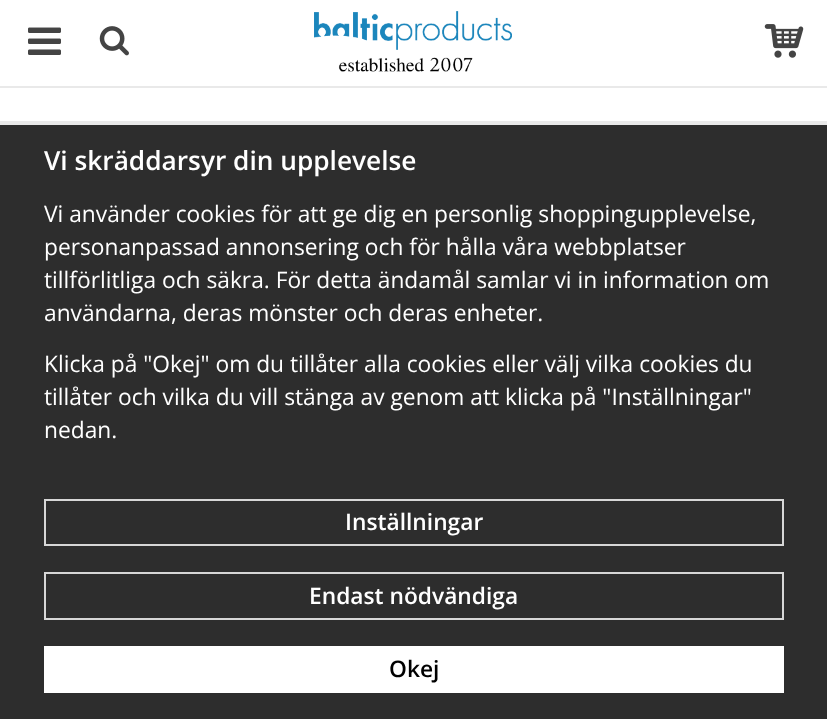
<!DOCTYPE html>
<meta charset="utf-8">
<style>body { margin: 0 } canvas { display: block }</style>
<canvas id="canvas" width="827" height="719"></canvas>
<img id="img1" src="images/1.png" hidden>
<img id="img2" src="images/2.png" hidden>
<img id="img3" src="images/3.png" hidden>
<img id="img4" src="images/4.png" hidden>
<script>
window.onload = function () {
    const canvas = document.getElementById('canvas');
    const context = canvas.getContext('2d');
    context.miterLimit = 4;
    context.fontKerning = 'normal';

    context.fillStyle = 'rgb(255, 255, 255)';
    context.fillRect(0, 0, 827, 719);
    context.fillStyle = 'rgb(233, 233, 233)';
    context.fillRect(0, 86, 827, 2);
    context.drawImage(document.getElementById('img1'), 28, 27, 33, 28);
    context.drawImage(document.getElementById('img2'), 99, 26, 30, 30);
    context.drawImage(document.getElementById('img3'), 314, 11, 198, 61);
    context.drawImage(document.getElementById('img4'), 764, 24, 40, 34);
    context.fillStyle = 'rgb(45, 45, 45)';
    context.fillRect(0, 125, 827, 594);
    context.fillStyle = 'rgb(233, 233, 233)';
    context.fillRect(0, 121, 827, 4);
    context.strokeStyle = 'rgb(215, 215, 215)';
    context.lineWidth = 2;
    context.strokeRect(45, 500, 738, 45);
    context.strokeRect(45, 573, 738, 46);
    context.fillStyle = 'rgb(255, 255, 255)';
    context.fillRect(44, 646, 740, 47);
    context.font = '600 26.25px Open Sans';
    context.fillText('Vi skräddarsyr din upplevelse', 44, 170);
    context.font = '22.75px Open Sans';
    context.fillText('Vi använder cookies för att ge dig en personlig shoppingupplevelse,', 44, 222);
    context.fillText('personanpassad annonsering och för hålla våra webbplatser', 44, 255);
    context.fillText('tillförlitliga och säkra. För detta ändamål samlar vi in information om', 44, 288);
    context.fillText('användarna, deras mönster och deras enheter.', 44, 321);
    context.fillText('Klicka på "Okej" om du tillåter alla cookies eller välj vilka cookies du', 44, 372);
    context.fillText('tillåter och vilka du vill stänga av genom att klicka på "Inställningar"', 44, 405);
    context.fillText('nedan.', 44, 438);
    context.font = '600 22.75px Open Sans';
    context.fillText('Inställningar', 345, 530);
    context.fillText('Endast nödvändiga', 309, 604);
    context.fillStyle = 'rgb(0, 0, 0)';
    context.fillText('Okej', 389, 677);
};
</script>
